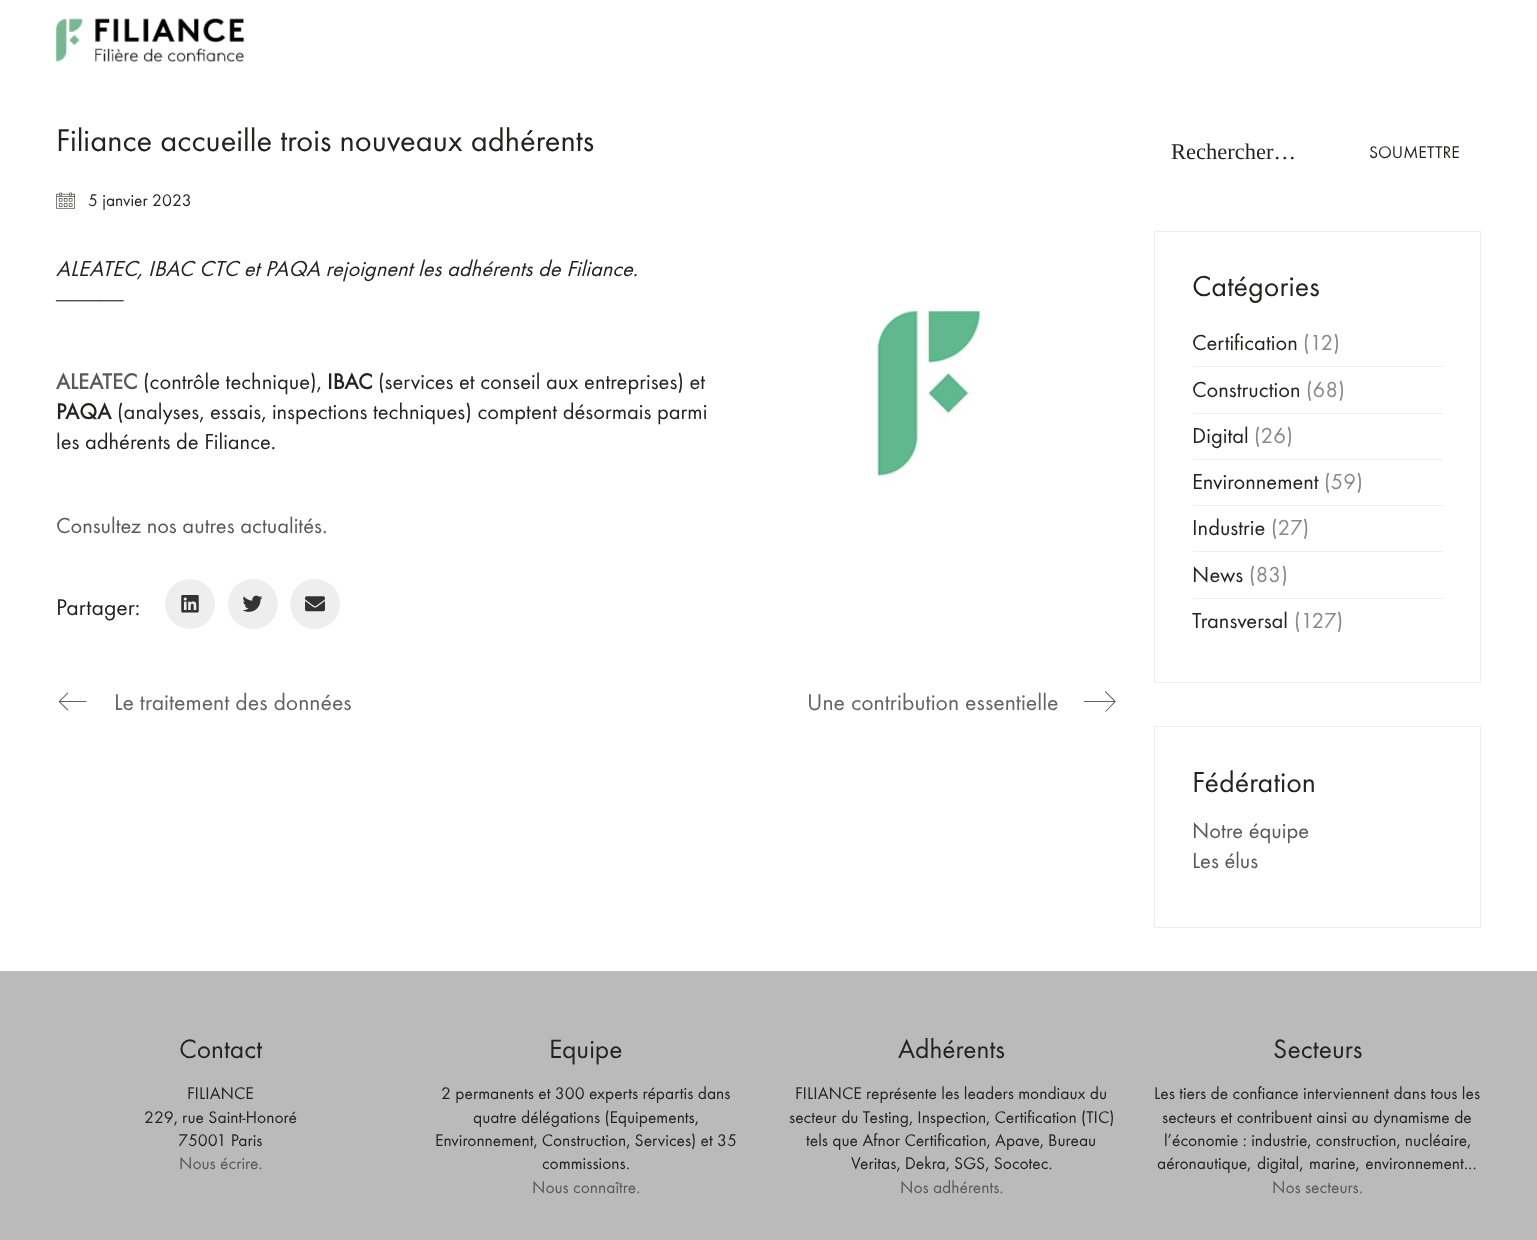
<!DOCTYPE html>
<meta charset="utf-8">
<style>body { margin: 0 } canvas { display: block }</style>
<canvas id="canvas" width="1537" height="1240"></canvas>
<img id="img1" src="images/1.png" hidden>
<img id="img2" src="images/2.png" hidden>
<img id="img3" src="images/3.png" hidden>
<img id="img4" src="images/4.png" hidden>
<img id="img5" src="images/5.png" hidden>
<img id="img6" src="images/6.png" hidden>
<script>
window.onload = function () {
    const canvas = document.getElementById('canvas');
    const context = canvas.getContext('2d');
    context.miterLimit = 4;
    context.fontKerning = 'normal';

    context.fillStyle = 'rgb(255, 255, 255)';
    context.fillRect(0, 0, 1537, 1240);
    context.drawImage(document.getElementById('img1'), 56, 18, 188, 44);
    context.drawImage(document.getElementById('img2'), 56, 192, 19, 17);
    context.drawImage(document.getElementById('img3'), 873, 309, 108, 172);
    context.fillStyle = 'rgb(238, 238, 238)';
    context.beginPath();
    context.arc(190, 604, 25, 0, 2 * Math.PI);
    context.fill();
    context.drawImage(document.getElementById('img4'), 181, 595, 18, 18);
    context.beginPath();
    context.arc(253, 604, 25, 0, 2 * Math.PI);
    context.fill();
    context.drawImage(document.getElementById('img5'), 242, 595, 21, 17);
    context.beginPath();
    context.arc(315, 604, 25, 0, 2 * Math.PI);
    context.fill();
    context.drawImage(document.getElementById('img6'), 305, 596, 20, 16);
    context.fillStyle = 'rgb(99, 99, 99)';
    context.beginPath();
    context.moveTo(86.5, 701);
    context.lineTo(60.5, 701);
    context.lineTo(68.5, 693);
    context.lineTo(67.5, 692.5);
    context.lineTo(58.5, 701.5);
    context.lineTo(67.5, 710.5);
    context.lineTo(68.5, 710);
    context.lineTo(60.5, 702);
    context.lineTo(86.5, 702);
    context.closePath();
    context.fill();
    context.beginPath();
    context.moveTo(1105.5, 691);
    context.lineTo(1105, 692);
    context.lineTo(1114, 701);
    context.lineTo(1084, 701);
    context.lineTo(1084, 702);
    context.lineTo(1114, 702);
    context.lineTo(1105, 711.5);
    context.lineTo(1105.5, 712);
    context.lineTo(1116, 701.5);
    context.closePath();
    context.fill();
    context.strokeStyle = 'rgb(238, 238, 238)';
    context.strokeRect(1154.5, 231.5, 326, 451);
    context.fillStyle = 'rgb(238, 238, 238)';
    context.fillRect(1193, 366, 250, 1);
    context.fillRect(1193, 413, 250, 1);
    context.fillRect(1193, 459, 250, 1);
    context.fillRect(1193, 505, 250, 1);
    context.fillRect(1193, 551, 250, 1);
    context.fillRect(1193, 598, 250, 1);
    context.strokeRect(1154.5, 726.5, 326, 201);
    context.fillStyle = 'rgb(186, 186, 186)';
    context.fillRect(0, 971, 1537, 269);
    context.font = '32.5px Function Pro';
    context.fillStyle = 'rgb(36, 35, 33)';
    context.fillText('Filiance accueille trois nouveaux adhérents', 56, 151);
    context.font = '17.5px Function Pro';
    context.fillText('5 janvier 2023', 88, 206);
    context.font = 'italic 22.5px Function Pro';
    context.fillText('ALEATEC, IBAC CTC et PAQA rejoignent les adhérents de Filiance.', 56, 276);
    context.font = '22.5px Liberation Serif';
    context.fillText('———', 56, 306);
    context.font = 'bold 22.5px Function Pro';
    context.fillStyle = 'rgb(89, 89, 89)';
    context.fillText('ALEATEC', 56, 389);
    context.font = '22.5px Function Pro';
    context.fillStyle = 'rgb(36, 35, 33)';
    context.fillText('(contrôle technique),', 143, 389);
    context.font = 'bold 22.5px Function Pro';
    context.fillText('IBAC', 327, 389);
    context.font = '22.5px Function Pro';
    context.fillText('(services et conseil aux entreprises) et', 378, 389);
    context.font = 'bold 22.5px Function Pro';
    context.fillText('PAQA', 56, 419);
    context.font = '22.5px Function Pro';
    context.fillText('(analyses, essais, inspections techniques) comptent désormais parmi', 117, 419);
    context.fillText('les adhérents de Filiance.', 56, 449);
    context.fillStyle = 'rgb(89, 89, 89)';
    context.fillText('Consultez nos autres actualités.', 56, 533);
    context.font = '23.75px Function Pro';
    context.fillStyle = 'rgb(36, 35, 33)';
    context.fillText('Partager:', 56, 615);
    context.fillStyle = 'rgb(99, 99, 99)';
    context.fillText('Le traitement des données', 114, 710);
    context.fillText('Une contribution essentielle', 807, 710);
    context.font = '22.5px Liberation Serif';
    context.fillStyle = 'rgb(36, 35, 33)';
    context.fillText('Rechercher…', 1171, 159);
    context.font = '17.5px Function Pro';
    context.fillText('SOUMETTRE', 1369, 158);
    context.font = '30px Function Pro';
    context.fillText('Catégories', 1192, 296);
    context.font = '22.5px Function Pro';
    context.fillText('Certification', 1192, 350);
    context.fillStyle = 'rgb(137, 137, 137)';
    context.fillText('(12)', 1303, 350);
    context.fillStyle = 'rgb(36, 35, 33)';
    context.fillText('Construction', 1192, 397);
    context.fillStyle = 'rgb(137, 137, 137)';
    context.fillText('(68)', 1306, 397);
    context.fillStyle = 'rgb(36, 35, 33)';
    context.fillText('Digital', 1192, 443);
    context.fillStyle = 'rgb(137, 137, 137)';
    context.fillText('(26)', 1254, 443);
    context.fillStyle = 'rgb(36, 35, 33)';
    context.fillText('Environnement', 1192, 489);
    context.fillStyle = 'rgb(137, 137, 137)';
    context.fillText('(59)', 1324, 489);
    context.fillStyle = 'rgb(36, 35, 33)';
    context.fillText('Industrie', 1192, 535);
    context.fillStyle = 'rgb(137, 137, 137)';
    context.fillText('(27)', 1271, 535);
    context.fillStyle = 'rgb(36, 35, 33)';
    context.fillText('News', 1192, 582);
    context.fillStyle = 'rgb(137, 137, 137)';
    context.fillText('(83)', 1249, 582);
    context.fillStyle = 'rgb(36, 35, 33)';
    context.fillText('Transversal', 1192, 628);
    context.fillStyle = 'rgb(137, 137, 137)';
    context.fillText('(127)', 1294, 628);
    context.font = '30px Function Pro';
    context.fillStyle = 'rgb(36, 35, 33)';
    context.fillText('Fédération', 1192, 792);
    context.font = '22.5px Function Pro';
    context.fillStyle = 'rgb(89, 89, 89)';
    context.fillText('Notre équipe', 1192, 838);
    context.fillText('Les élus', 1192, 868);
    context.font = '27.5px Function Pro';
    context.fillStyle = 'rgb(36, 35, 33)';
    context.fillText('Contact', 179, 1058);
    context.font = '17.5px Function Pro';
    context.fillText('FILIANCE', 187, 1099);
    context.fillText('229, rue Saint-Honoré', 144, 1123);
    context.fillText('75001 Paris', 178, 1146);
    context.fillStyle = 'rgb(89, 89, 89)';
    context.fillText('Nous écrire.', 179, 1169);
    context.font = '27.5px Function Pro';
    context.fillStyle = 'rgb(36, 35, 33)';
    context.fillText('Equipe', 549, 1058);
    context.font = '17.5px Function Pro';
    context.fillText('2 permanents et 300 experts répartis dans', 441, 1099);
    context.fillText('quatre délégations (Equipements,', 473, 1123);
    context.fillText('Environnement, Construction, Services) et 35', 435, 1146);
    context.fillText('commissions.', 542, 1169);
    context.fillStyle = 'rgb(89, 89, 89)';
    context.fillText('Nous connaître.', 532, 1193);
    context.font = '27.5px Function Pro';
    context.fillStyle = 'rgb(36, 35, 33)';
    context.fillText('Adhérents', 898, 1058);
    context.font = '17.5px Function Pro';
    context.fillText('FILIANCE représente les leaders mondiaux du', 795, 1099);
    context.fillText('secteur du Testing, Inspection, Certification (TIC)', 789, 1123);
    context.fillText('tels que Afnor Certification, Apave, Bureau', 806, 1146);
    context.fillText('Veritas, Dekra, SGS, Socotec.', 851, 1169);
    context.fillStyle = 'rgb(89, 89, 89)';
    context.fillText('Nos adhérents.', 900, 1193);
    context.font = '27.5px Function Pro';
    context.fillStyle = 'rgb(36, 35, 33)';
    context.fillText('Secteurs', 1273, 1058);
    context.font = '17.5px Function Pro';
    context.fillText('Les tiers de confiance interviennent dans tous les', 1154, 1099);
    context.fillText('secteurs et contribuent ainsi au dynamisme de', 1162, 1123);
    context.fillText('l’économie : industrie, construction, nucléaire,', 1164, 1146);
    context.wordSpacing = '1.5px';
    context.fillText('aéronautique, digital, marine, environnement…', 1157, 1169);
    context.wordSpacing = '0px';
    context.fillStyle = 'rgb(89, 89, 89)';
    context.fillText('Nos secteurs.', 1272, 1193);
};
</script>
